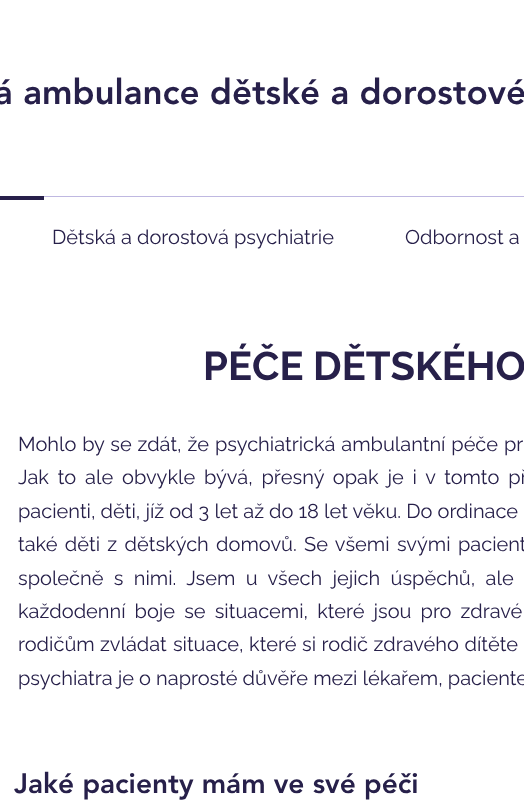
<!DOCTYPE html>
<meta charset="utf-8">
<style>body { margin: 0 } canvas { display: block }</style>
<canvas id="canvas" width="524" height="806"></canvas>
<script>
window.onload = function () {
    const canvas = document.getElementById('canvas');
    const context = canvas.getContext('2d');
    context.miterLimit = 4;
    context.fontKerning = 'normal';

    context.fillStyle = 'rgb(255, 255, 255)';
    context.fillRect(0, 0, 524, 806);
    context.fillStyle = 'rgb(39, 32, 74)';
    context.fillRect(0, 196, 44, 4);
    context.fillStyle = 'rgb(191, 184, 225)';
    context.fillRect(44, 196, 480, 1);
    context.font = '900 35px "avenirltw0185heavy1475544"';
    context.fillStyle = 'rgb(39, 32, 74)';
    context.fillText('á ambulance dětské a dorostové', -6, 104);
    context.font = '20px Raleway';
    context.fillText('Dětská a dorostová psychiatrie', 52, 244);
    context.fillText('Odbornost a', 405, 244);
    context.font = 'bold 40px Raleway';
    context.fillText('PÉČE DĚTSKÉHO', 203, 380);
    context.wordSpacing = '0.75px';
    context.font = '20px Raleway';
    context.fillText('Mohlo by se zdát, že psychiatrická ambulantní péče pr', 18, 451);
    context.wordSpacing = '3.75px';
    context.fillText('Jak to ale obvykle bývá, přesný opak je i v tomto př', 18, 484);
    context.wordSpacing = '0px';
    context.fillText('pacienti, děti, jíž od 3 let až do 18 let věku. Do ordinace', 18, 518);
    context.wordSpacing = '2.25px';
    context.fillText('také děti z dětských domovů. Se všemi svými pacient', 18, 551);
    context.wordSpacing = '5.25px';
    context.fillText('společně s nimi. Jsem u všech jejich úspěchů, ale', 18, 585);
    context.wordSpacing = '4px';
    context.fillText('každodenní boje se situacemi, které jsou pro zdravé', 18, 618);
    context.wordSpacing = '0px';
    context.fillText('rodičům', 18, 651);
    context.wordSpacing = '1px';
    context.fillText('zvládat situace', 100, 651);
    context.wordSpacing = '0.5px';
    context.fillText(', které si rodič zdravého dítěte', 239, 651);
    context.wordSpacing = '0px';
    context.fillText('psychiatra je o naprosté důvěře mezi lékařem, paciente', 18, 685);
    context.font = '900 28px "avenirltw0185heavy1475544"';
    context.fillText('Jaké pacienty mám ve své péči', 14, 793);
};
</script>
